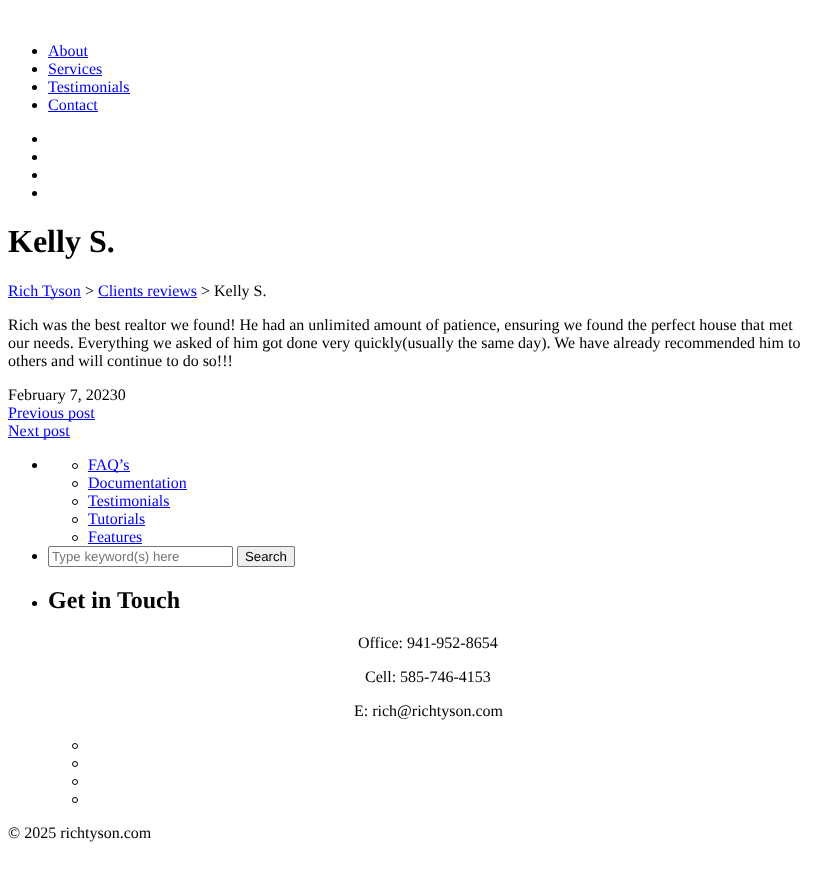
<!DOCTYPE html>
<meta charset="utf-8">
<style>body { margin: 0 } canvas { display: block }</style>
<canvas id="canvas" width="816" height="869"></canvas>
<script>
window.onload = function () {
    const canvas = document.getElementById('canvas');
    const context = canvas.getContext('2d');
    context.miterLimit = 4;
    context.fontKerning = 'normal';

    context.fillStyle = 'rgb(255, 255, 255)';
    context.fillRect(0, 0, 816, 869);
    context.fillStyle = 'rgb(0, 0, 0)';
    context.beginPath();
    context.arc(34.5, 51.5, 2.5, 0, 2 * Math.PI);
    context.fill();
    context.fillStyle = 'rgb(0, 0, 238)';
    context.fillRect(48, 57, 40, 1);
    context.fillStyle = 'rgb(0, 0, 0)';
    context.beginPath();
    context.arc(34.5, 69.5, 2.5, 0, 2 * Math.PI);
    context.fill();
    context.fillStyle = 'rgb(0, 0, 238)';
    context.fillRect(48, 75, 54, 1);
    context.fillStyle = 'rgb(0, 0, 0)';
    context.beginPath();
    context.arc(34.5, 87.5, 2.5, 0, 2 * Math.PI);
    context.fill();
    context.fillStyle = 'rgb(0, 0, 238)';
    context.fillRect(48, 93, 82, 1);
    context.fillStyle = 'rgb(0, 0, 0)';
    context.beginPath();
    context.arc(34.5, 105.5, 2.5, 0, 2 * Math.PI);
    context.fill();
    context.fillStyle = 'rgb(0, 0, 238)';
    context.fillRect(48, 111, 50, 1);
    context.fillStyle = 'rgb(0, 0, 0)';
    context.beginPath();
    context.arc(34.5, 139.5, 2.5, 0, 2 * Math.PI);
    context.fill();
    context.beginPath();
    context.arc(34.5, 157.5, 2.5, 0, 2 * Math.PI);
    context.fill();
    context.beginPath();
    context.arc(34.5, 175.5, 2.5, 0, 2 * Math.PI);
    context.fill();
    context.beginPath();
    context.arc(34.5, 193.5, 2.5, 0, 2 * Math.PI);
    context.fill();
    context.fillStyle = 'rgb(0, 0, 238)';
    context.fillRect(8, 297, 73, 1);
    context.fillRect(98, 297, 99, 1);
    context.fillRect(8, 419, 87, 1);
    context.fillRect(8, 437, 62, 1);
    context.fillStyle = 'rgb(0, 0, 0)';
    context.beginPath();
    context.arc(34.5, 465.5, 2.5, 0, 2 * Math.PI);
    context.fill();
    context.beginPath();
    context.arc(75, 466, 2.5, 0, 2 * Math.PI);
    context.strokeStyle = 'rgb(0, 0, 0)';
    context.stroke();
    context.fillStyle = 'rgb(0, 0, 238)';
    context.fillRect(88, 471, 42, 1);
    context.beginPath();
    context.arc(75, 484, 2.5, 0, 2 * Math.PI);
    context.stroke();
    context.fillRect(88, 489, 99, 1);
    context.beginPath();
    context.arc(75, 502, 2.5, 0, 2 * Math.PI);
    context.stroke();
    context.fillRect(88, 507, 82, 1);
    context.beginPath();
    context.arc(75, 520, 2.5, 0, 2 * Math.PI);
    context.stroke();
    context.fillRect(88, 525, 57, 1);
    context.beginPath();
    context.arc(75, 538, 2.5, 0, 2 * Math.PI);
    context.stroke();
    context.fillRect(88, 543, 54, 1);
    context.fillStyle = 'rgb(0, 0, 0)';
    context.beginPath();
    context.arc(34.5, 556.5, 2.5, 0, 2 * Math.PI);
    context.fill();
    context.beginPath();
    context.roundRect(48.5, 546.5, 184, 20, 1.5);
    context.strokeStyle = 'rgb(118, 118, 118)';
    context.stroke();
    context.fillStyle = 'rgb(239, 239, 239)';
    context.beginPath();
    context.roundRect(237.5, 546.5, 57, 20, 1.5);
    context.fill();
    context.stroke();
    context.fillStyle = 'rgb(0, 0, 0)';
    context.beginPath();
    context.arc(34.5, 603.5, 2.5, 0, 2 * Math.PI);
    context.fill();
    context.beginPath();
    context.arc(75, 746, 2.5, 0, 2 * Math.PI);
    context.strokeStyle = 'rgb(0, 0, 0)';
    context.stroke();
    context.beginPath();
    context.arc(75, 764, 2.5, 0, 2 * Math.PI);
    context.stroke();
    context.beginPath();
    context.arc(75, 782, 2.5, 0, 2 * Math.PI);
    context.stroke();
    context.beginPath();
    context.arc(75, 800, 2.5, 0, 2 * Math.PI);
    context.stroke();
    context.font = '16px Liberation Serif';
    context.fillStyle = 'rgb(0, 0, 238)';
    context.fillText('About', 48, 56);
    context.fillText('Services', 48, 74);
    context.fillText('Testimonials', 48, 92);
    context.fillText('Contact', 48, 110);
    context.font = 'bold 32px Liberation Serif';
    context.fillStyle = 'rgb(0, 0, 0)';
    context.fillText('Kelly S.', 8, 252);
    context.font = '16px Liberation Serif';
    context.fillStyle = 'rgb(0, 0, 238)';
    context.fillText('Rich Tyson', 8, 296);
    context.fillStyle = 'rgb(0, 0, 0)';
    context.fillText('>', 85, 296);
    context.fillStyle = 'rgb(0, 0, 238)';
    context.fillText('Clients reviews', 98, 296);
    context.fillStyle = 'rgb(0, 0, 0)';
    context.fillText('> Kelly S.', 201, 296);
    context.fillText('Rich was the best realtor we found! He had an unlimited amount of patience, ensuring we found the perfect house that met', 8, 330);
    context.fillText('our needs. Everything we asked of him got done very quickly(usually the same day). We have already recommended him to', 8, 348);
    context.fillText('others and will continue to do so!!!', 8, 366);
    context.fillText('February 7, 20230', 8, 400);
    context.fillStyle = 'rgb(0, 0, 238)';
    context.fillText('Previous post', 8, 418);
    context.fillText('Next post', 8, 436);
    context.fillText('FAQ’s', 88, 470);
    context.fillText('Documentation', 88, 488);
    context.fillText('Testimonials', 88, 506);
    context.fillText('Tutorials', 88, 524);
    context.fillText('Features', 88, 542);
    context.font = '13.25px Liberation Sans';
    context.fillStyle = 'rgb(117, 117, 117)';
    context.fillText('Type keyword(s) here', 52, 561);
    context.fillStyle = 'rgb(0, 0, 0)';
    context.fillText('Search', 245, 561);
    context.font = 'bold 24px Liberation Serif';
    context.fillText('Get in Touch', 48, 608);
    context.font = '16px Liberation Serif';
    context.fillText('Office: 941-952-8654', 358, 648);
    context.fillText('Cell: 585-746-4153', 365, 682);
    context.fillText('E: rich@richtyson.com', 354, 716);
    context.fillText('© 2025 richtyson.com', 8, 838);
};
</script>
